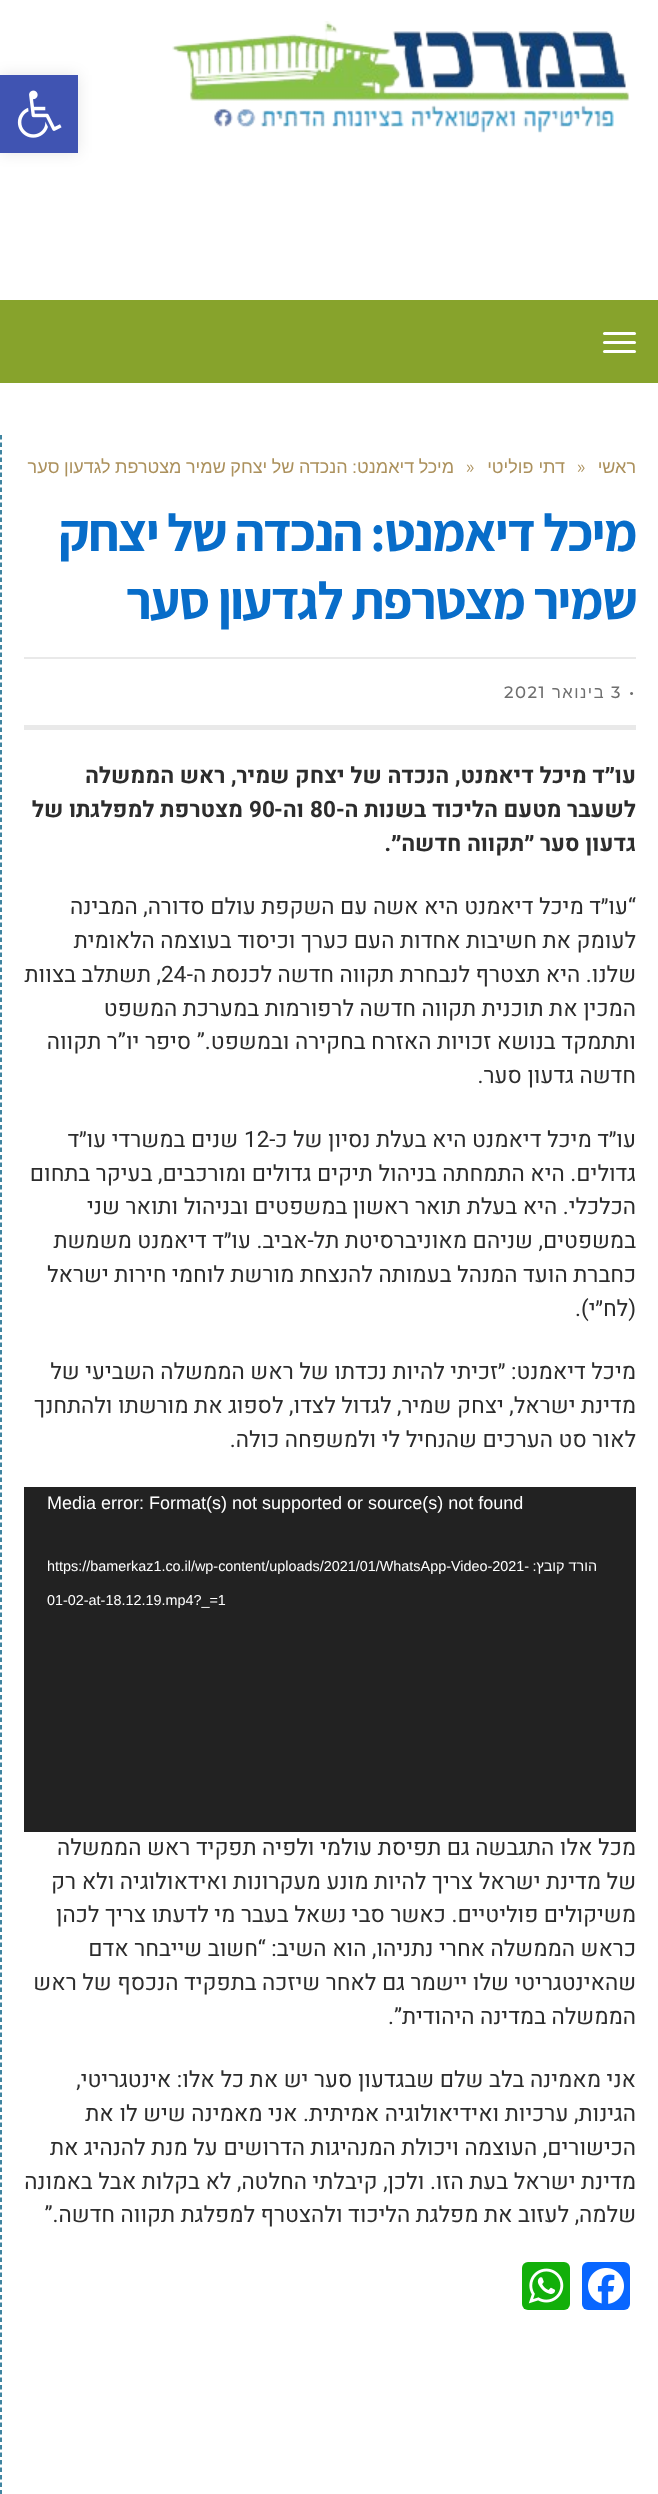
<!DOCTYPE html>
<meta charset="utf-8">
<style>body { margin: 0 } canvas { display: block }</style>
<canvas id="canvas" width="658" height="2494"></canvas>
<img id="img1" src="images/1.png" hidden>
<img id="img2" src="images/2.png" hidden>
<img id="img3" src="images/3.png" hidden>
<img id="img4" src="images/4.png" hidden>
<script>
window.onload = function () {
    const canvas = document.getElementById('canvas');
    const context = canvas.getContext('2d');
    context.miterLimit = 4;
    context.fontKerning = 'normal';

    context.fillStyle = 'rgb(255, 255, 255)';
    context.fillRect(0, 0, 658, 2494);
    context.fillStyle = 'rgba(0, 0, 0, 0.1)';
    context.filter = 'blur(7.5px)';
    context.beginPath();
    context.rect(0, 75, 78, 78);
    context.fill();
    context.filter = 'none';
    context.fillStyle = 'rgb(64, 84, 178)';
    context.fillRect(0, 75, 78, 78);
    context.drawImage(document.getElementById('img1'), 17, 90, 45, 48);
    context.drawImage(document.getElementById('img2'), 172, 21, 458, 112);
    context.fillStyle = 'rgb(135, 163, 44)';
    context.fillRect(0, 300, 658, 83);
    context.fillStyle = 'rgb(255, 255, 255)';
    context.beginPath();
    context.roundRect(603, 332, 33, 3, 1.5);
    context.fill();
    context.beginPath();
    context.roundRect(603, 341, 33, 3, 1.5);
    context.fill();
    context.beginPath();
    context.roundRect(603, 350, 33, 3, 1.5);
    context.fill();
    context.beginPath();
    context.moveTo(1, 435);
    context.lineTo(1, 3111);
    context.strokeStyle = 'rgb(2, 94, 131)';
    context.lineWidth = 1.5;
    context.setLineDash([4.5, 3]);
    context.stroke();
    context.fillStyle = 'rgb(233, 233, 233)';
    context.fillRect(24, 657, 612, 2);
    context.fillRect(24, 725, 612, 5);
    context.fillStyle = 'rgb(34, 34, 34)';
    context.fillRect(24, 1487, 612, 345);
    context.fillStyle = 'rgb(8, 102, 255)';
    context.beginPath();
    context.roundRect(582, 2262, 48, 48, 6);
    context.fill();
    context.drawImage(document.getElementById('img3'), 588, 2268, 36, 36);
    context.fillStyle = 'rgb(18, 175, 10)';
    context.beginPath();
    context.roundRect(522, 2262, 48, 48, 6);
    context.fill();
    context.drawImage(document.getElementById('img4'), 528, 2268, 36, 36);
    context.direction = 'rtl';
    context.font = '18px Liberation Sans';
    context.fillStyle = 'rgb(172, 145, 93)';
    context.fillText('ראשי', 636, 473);
    context.direction = 'ltr';
    context.font = '18px Montserrat';
    context.fillText('»', 577, 473);
    context.direction = 'rtl';
    context.font = '18px Liberation Sans';
    context.fillText('דתי פוליטי', 565, 473);
    context.direction = 'ltr';
    context.font = '18px Montserrat';
    context.fillText('»', 466, 473);
    context.wordSpacing = '-0.5px';
    context.direction = 'rtl';
    context.font = '18px Liberation Sans';
    context.fillText('מיכל דיאמנט: הנכדה של יצחק שמיר מצטרפת לגדעון סער', 454, 473);
    context.letterSpacing = '-1.5px';
    context.wordSpacing = '0px';
    context.font = 'bold 52.5px Assistant';
    context.fillStyle = 'rgb(8, 109, 201)';
    context.fillText('מיכל דיאמנט: הנכדה של יצחק', 636, 551);
    context.fillText('שמיר מצטרפת לגדעון סער', 636, 619);
    context.letterSpacing = '1.5px';
    context.direction = 'ltr';
    context.font = '500 16.5px Montserrat';
    context.fillStyle = 'rgb(111, 111, 111)';
    context.fillText('•', 629, 698);
    context.fillText('3', 611, 698);
    context.direction = 'rtl';
    context.font = '16.5px Liberation Sans';
    context.fillText('בינואר', 605, 698);
    context.direction = 'ltr';
    context.font = '500 16.5px Montserrat';
    context.fillText('2021', 504, 698);
    context.letterSpacing = '0px';
    context.direction = 'rtl';
    context.font = 'bold 22.5px Heebo';
    context.fillStyle = 'rgb(45, 45, 45)';
    context.fillText('עו״ד מיכל דיאמנט, הנכדה של יצחק שמיר, ראש הממשלה', 636, 783);
    context.fillText('לשעבר מטעם הליכוד בשנות ה-', 636, 817);
    context.direction = 'ltr';
    context.fillText('80', 310, 817);
    context.direction = 'rtl';
    context.fillText('וה-', 304, 817);
    context.direction = 'ltr';
    context.fillText('90', 249, 817);
    context.direction = 'rtl';
    context.fillText('מצטרפת למפלגתו של', 243, 817);
    context.fillText('גדעון סער ״תקווה חדשה״.', 636, 851);
    context.font = '22.5px Heebo';
    context.fillText('“עו״ד מיכל דיאמנט היא אשה עם השקפת עולם סדורה, המבינה', 636, 914);
    context.fillText('לעומק את חשיבות אחדות העם כערך וכיסוד בעוצמה הלאומית', 636, 948);
    context.fillText('שלנו. היא תצטרף לנבחרת תקווה חדשה לכנסת ה-', 636, 982);
    context.direction = 'ltr';
    context.fillText('24', 161, 982);
    context.direction = 'rtl';
    context.fillText(', תשתלב בצוות', 161, 982);
    context.fillText('המכין את תוכנית תקווה חדשה לרפורמות במערכת המשפט', 636, 1016);
    context.fillText('ותתמקד בנושא זכויות האזרח בחקירה ובמשפט.” סיפר יו”ר תקווה', 636, 1049);
    context.fillText('חדשה גדעון סער.', 636, 1083);
    context.fillText('עו״ד מיכל דיאמנט היא בעלת נסיון של כ-', 636, 1147);
    context.direction = 'ltr';
    context.fillText('12', 244, 1147);
    context.direction = 'rtl';
    context.fillText('שנים במשרדי עו״ד', 238, 1147);
    context.fillText('גדולים. היא התמחתה בניהול תיקים גדולים ומורכבים, בעיקר בתחום', 636, 1181);
    context.fillText('הכלכלי. היא בעלת תואר ראשון במשפטים ובניהול ותואר שני', 636, 1214);
    context.fillText('במשפטים, שניהם מאוניברסיטת תל-אביב. עו״ד דיאמנט משמשת', 636, 1248);
    context.fillText('כחברת הועד המנהל בעמותה להנצחת מורשת לוחמי חירות ישראל', 636, 1282);
    context.fillText('(לח״י).', 636, 1316);
    context.fillText('מיכל דיאמנט: ״זכיתי להיות נכדתו של ראש הממשלה השביעי של', 636, 1379);
    context.fillText('מדינת ישראל, יצחק שמיר, לגדול לצדו, לספוג את מורשתו ולהתחנך', 636, 1413);
    context.fillText('לאור סט הערכים שהנחיל לי ולמשפחה כולה.', 636, 1447);
    context.direction = 'ltr';
    context.font = '18px Liberation Sans';
    context.fillStyle = 'rgb(255, 255, 255)';
    context.fillText('Media error: Format(s) not supported or source(s) not found', 47, 1509);
    context.direction = 'rtl';
    context.font = '14.4px Liberation Sans';
    context.fillText('הורד קובץ:', 597, 1571);
    context.direction = 'ltr';
    context.fillText('https://bamerkaz1.co.il/wp-content/uploads/2021/01/WhatsApp-Video-2021-', 47, 1571);
    context.fillText('01-02-at-18.12.19.mp4?_=1', 47, 1605);
    context.direction = 'rtl';
    context.font = '22.5px Heebo';
    context.fillStyle = 'rgb(45, 45, 45)';
    context.fillText('מכל אלו התגבשה גם תפיסת עולמי ולפיה תפקיד ראש הממשלה', 636, 1855);
    context.fillText('של מדינת ישראל צריך להיות מונע מעקרונות ואידאולוגיה ולא רק', 636, 1889);
    context.fillText('משיקולים פוליטיים. כאשר סבי נשאל בעבר מי לדעתו צריך לכהן', 636, 1922);
    context.fillText('כראש הממשלה אחרי נתניהו, הוא השיב: “חשוב שייבחר אדם', 636, 1956);
    context.fillText('שהאינטגריטי שלו יישמר גם לאחר שיזכה בתפקיד הנכסף של ראש', 636, 1990);
    context.fillText('הממשלה במדינה היהודית”.', 636, 2024);
    context.fillText('אני מאמינה בלב שלם שבגדעון סער יש את כל אלו: אינטגריטי,', 636, 2087);
    context.fillText('הגינות, ערכיות ואידיאולוגיה אמיתית. אני מאמינה שיש לו את', 636, 2121);
    context.fillText('הכישורים, העוצמה ויכולת המנהיגות הדרושים על מנת להנהיג את', 636, 2155);
    context.fillText('מדינת ישראל בעת הזו. ולכן, קיבלתי החלטה, לא בקלות אבל באמונה', 636, 2189);
    context.fillText('שלמה, לעזוב את מפלגת הליכוד ולהצטרף למפלגת תקווה חדשה.”', 636, 2222);
};
</script>
